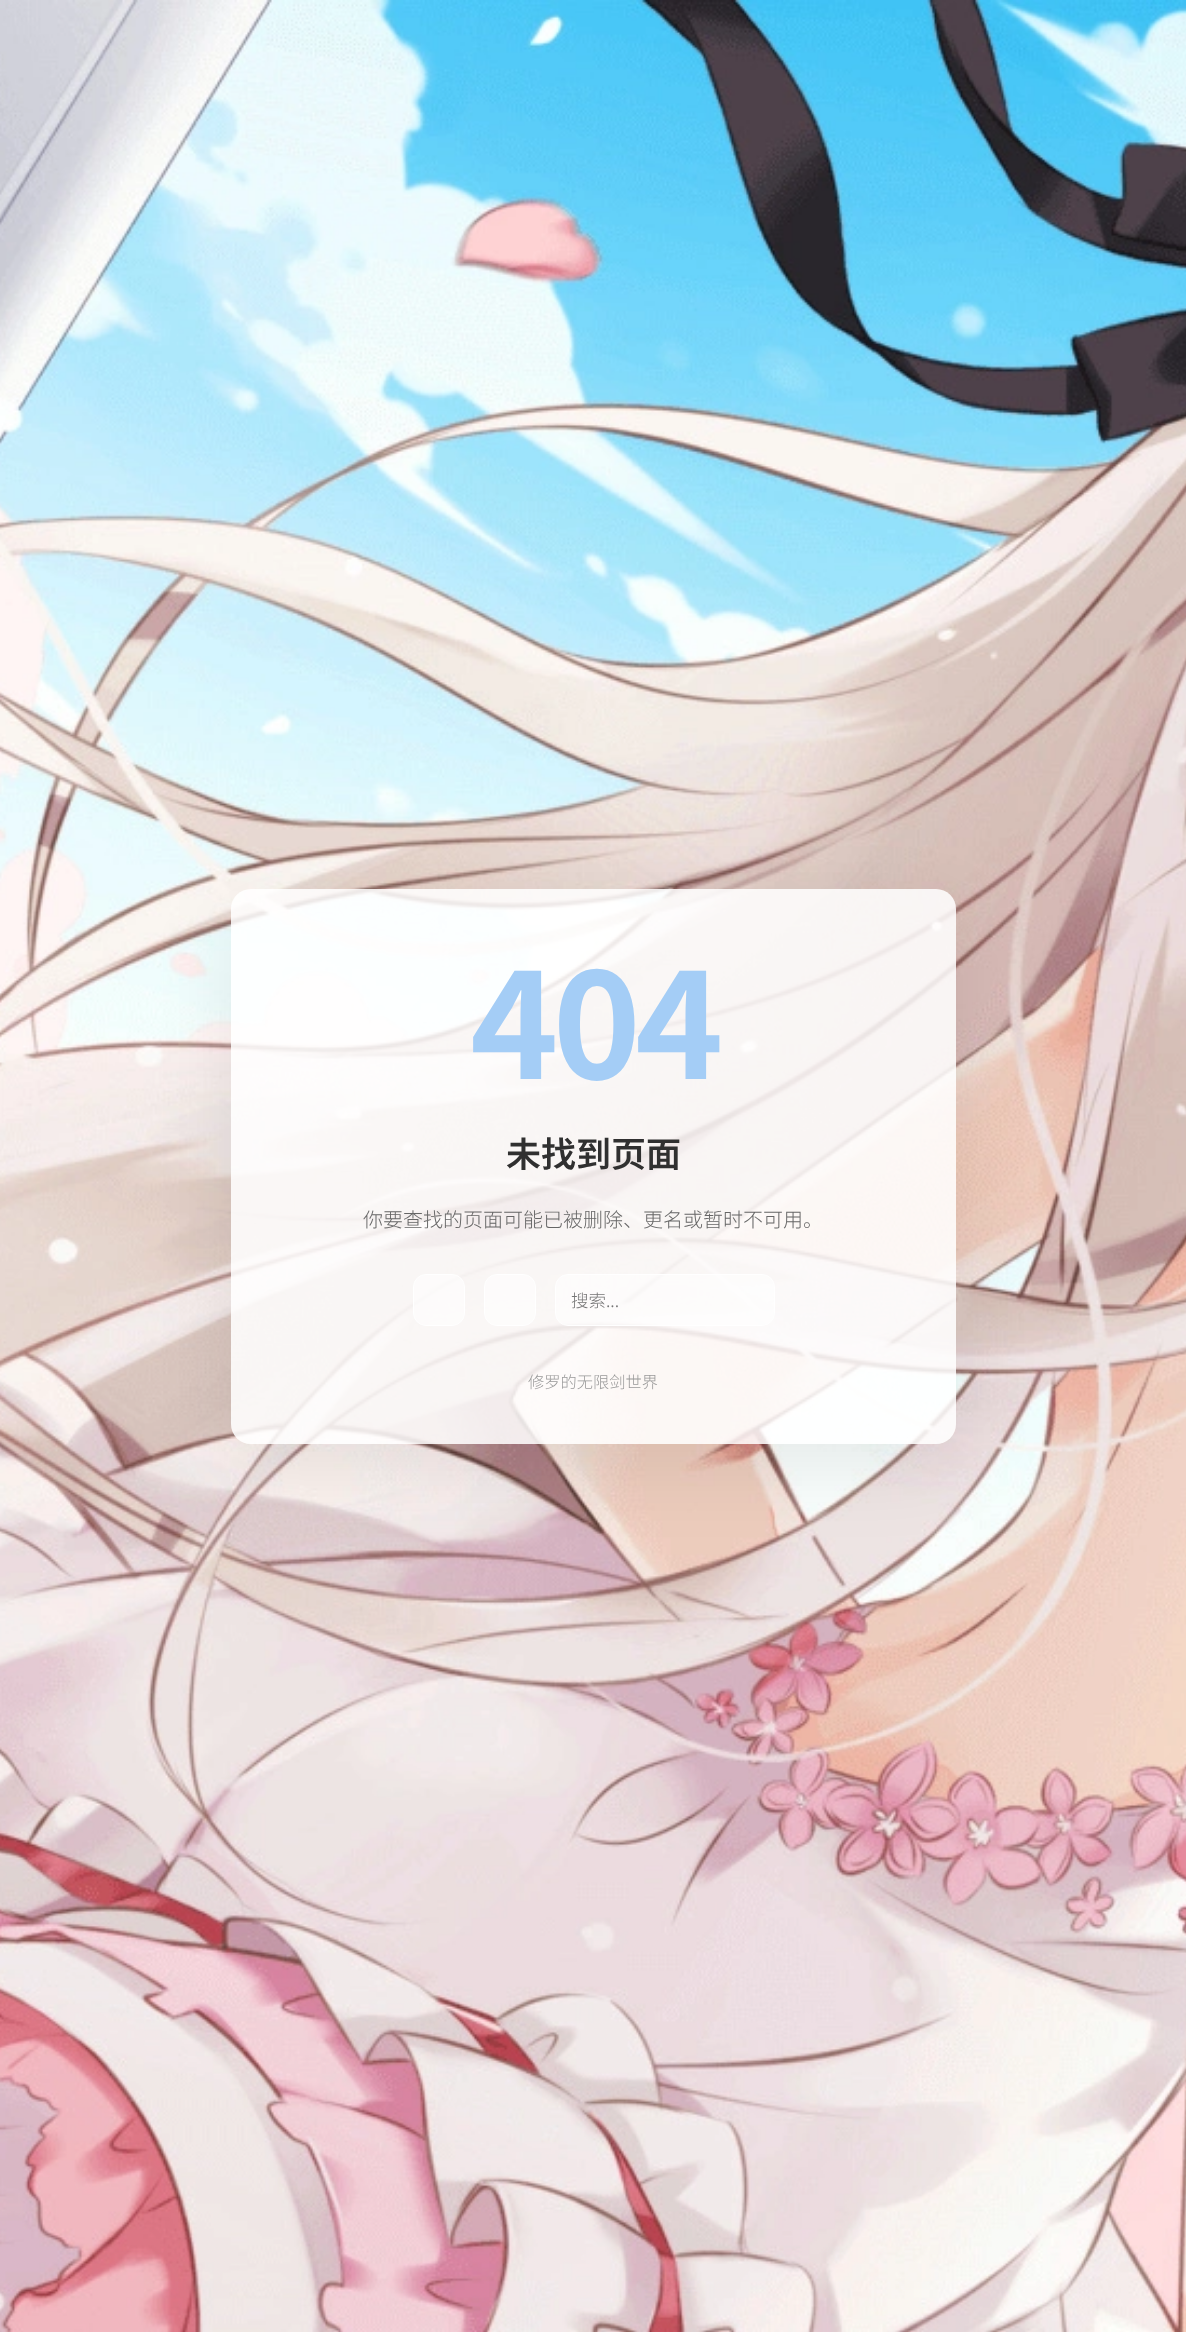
<!DOCTYPE html>
<meta charset="utf-8">
<style>body { margin: 0 } canvas { display: block }</style>
<canvas id="canvas" width="1186" height="2332"></canvas>
<img id="img1" src="images/1.png" hidden>
<script>
window.onload = function () {
    const canvas = document.getElementById('canvas');
    const context = canvas.getContext('2d');
    context.miterLimit = 4;
    context.fontKerning = 'normal';

    context.fillStyle = 'rgb(255, 255, 255)';
    context.fillRect(0, 0, 1186, 2332);
    context.drawImage(document.getElementById('img1'), 0, 0, 1186, 2332);
    context.save();
    context.beginPath();
    context.moveTo(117, 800);
    context.lineTo(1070, 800);
    context.lineTo(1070, 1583);
    context.lineTo(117, 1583);
    context.closePath();
    context.moveTo(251, 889);
    context.lineTo(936, 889);
    context.bezierCurveTo(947, 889, 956, 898, 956, 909);
    context.lineTo(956, 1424);
    context.bezierCurveTo(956, 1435, 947, 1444, 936, 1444);
    context.lineTo(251, 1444);
    context.bezierCurveTo(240, 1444, 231, 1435, 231, 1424);
    context.lineTo(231, 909);
    context.bezierCurveTo(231, 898, 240, 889, 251, 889);
    context.closePath();
    context.clip('evenodd');
    context.fillStyle = 'rgba(0, 0, 0, 0.08)';
    context.filter = 'blur(37.5px)';
    context.beginPath();
    context.roundRect(231, 914, 725, 555, 20);
    context.fill();
    context.filter = 'none';
    context.restore();
    context.fillStyle = 'rgba(255, 255, 255, 0.85)';
    context.beginPath();
    context.roundRect(231, 889, 725, 555, 20);
    context.fill();
    context.fillStyle = 'rgba(255, 255, 255, 0.6)';
    context.beginPath();
    context.roundRect(413.5, 1274.5, 51, 51, 12.5);
    context.fill();
    context.strokeStyle = 'rgb(255, 255, 255)';
    context.stroke();
    context.beginPath();
    context.roundRect(484.5, 1274.5, 51, 51, 12.5);
    context.fill();
    context.stroke();
    context.beginPath();
    context.roundRect(555.5, 1274.5, 219, 51, 12.5);
    context.fill();
    context.stroke();
    context.letterSpacing = '-6px';
    context.font = 'bold 150px Noto Sans SC';
    context.fillStyle = 'rgb(164, 205, 246)';
    context.fillText('404', 470, 1079);
    context.letterSpacing = '0px';
    context.font = '600 35px Noto Sans SC';
    context.fillStyle = 'rgb(48, 48, 48)';
    context.fillText('未找到页面', 506, 1167);
    context.font = '300 20px Noto Sans SC';
    context.fillStyle = 'rgb(102, 102, 102)';
    context.fillText('你要查找的页面可能已被删除、更名或暂时不可用。', 363, 1227);
    context.font = '300 17.5px Noto Sans SC';
    context.fillStyle = 'rgb(117, 117, 117)';
    context.fillText('搜索...', 571, 1307);
    context.font = '300 16.25px Noto Sans SC';
    context.fillStyle = 'rgb(153, 153, 153)';
    context.fillText('修罗的无限剑世界', 528, 1388);
};
</script>
